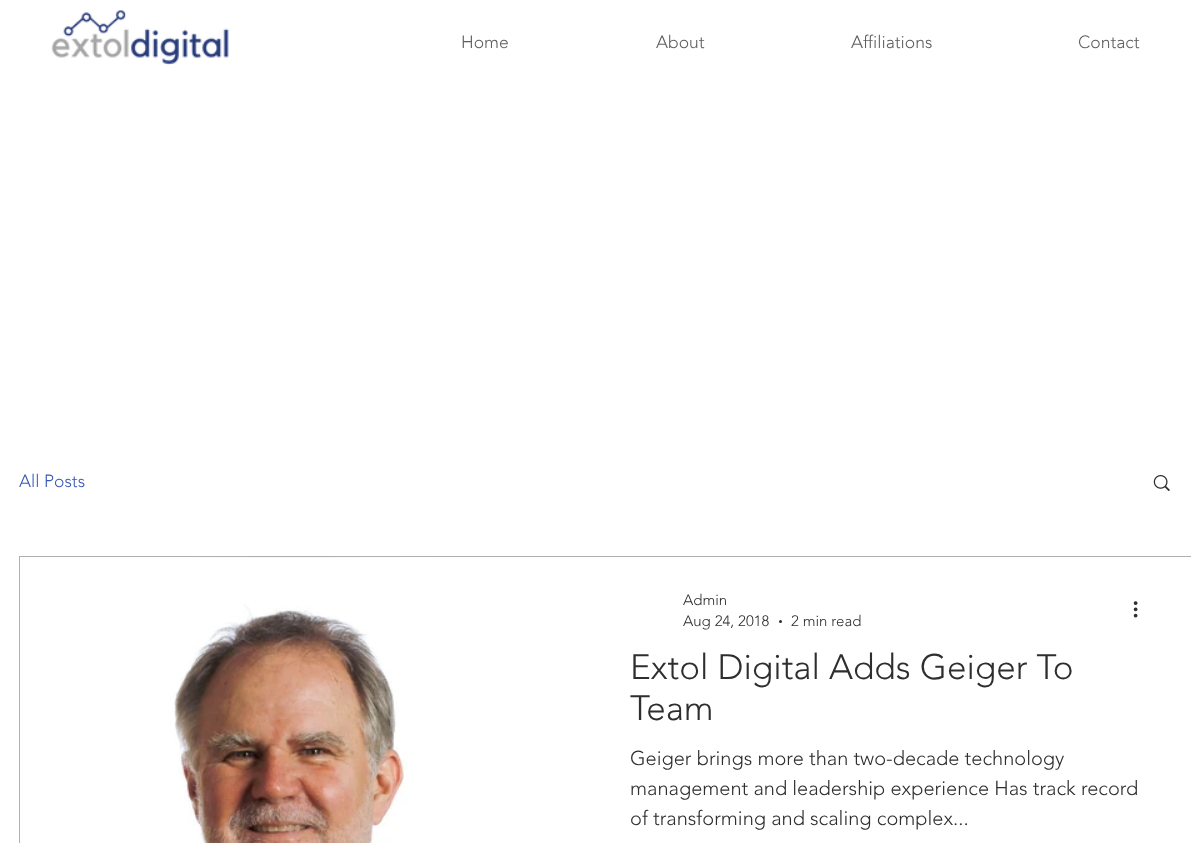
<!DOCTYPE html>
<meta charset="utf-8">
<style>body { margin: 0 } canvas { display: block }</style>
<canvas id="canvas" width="1191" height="843"></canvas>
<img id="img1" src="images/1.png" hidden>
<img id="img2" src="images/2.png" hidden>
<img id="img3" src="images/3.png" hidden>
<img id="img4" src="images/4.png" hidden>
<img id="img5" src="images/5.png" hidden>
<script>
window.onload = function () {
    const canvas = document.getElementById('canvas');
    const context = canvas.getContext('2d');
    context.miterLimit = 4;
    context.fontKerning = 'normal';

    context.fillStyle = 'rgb(255, 255, 255)';
    context.fillRect(0, 0, 1191, 843);
    context.drawImage(document.getElementById('img1'), 51, 10, 178, 55);
    context.drawImage(document.getElementById('img2'), 1153, 475, 17, 17);
    context.strokeStyle = 'rgb(176, 176, 176)';
    context.strokeRect(19.5, 556.5, 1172, 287);
    context.drawImage(document.getElementById('img3'), 96, 557, 404, 1);
    context.drawImage(document.getElementById('img4'), 96, 558, 404, 285);
    context.fillStyle = 'rgb(47, 46, 46)';
    context.beginPath();
    context.arc(780.5, 621.5, 1.5, 0, 2 * Math.PI);
    context.fill();
    context.drawImage(document.getElementById('img5'), 1133, 601, 5, 17);
    context.font = '300 17.5px "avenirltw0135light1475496"';
    context.fillStyle = 'rgb(96, 94, 94)';
    context.fillText('Home', 461, 48);
    context.fillText('About', 656, 48);
    context.fillText('Affiliations', 851, 48);
    context.fillText('Contact', 1078, 48);
    context.fillStyle = 'rgb(59, 88, 184)';
    context.fillText('All Posts', 19, 487);
    context.font = '300 15px "avenirltw0135light1475496"';
    context.fillStyle = 'rgb(47, 46, 46)';
    context.fillText('Admin', 683, 605);
    context.fillText('Aug 24, 2018', 683, 626);
    context.fillText('2 min read', 791, 626);
    context.font = '300 35px "avenirltw0135light1475496"';
    context.fillText('Extol Digital Adds Geiger To', 630, 679);
    context.fillText('Team', 630, 720);
    context.font = '300 20px "avenirltw0135light1475496"';
    context.fillText('Geiger brings more than two-decade technology', 630, 765);
    context.fillText('management and leadership experience Has track record', 630, 795);
    context.fillText('of transforming and scaling complex...', 630, 825);
};
</script>
